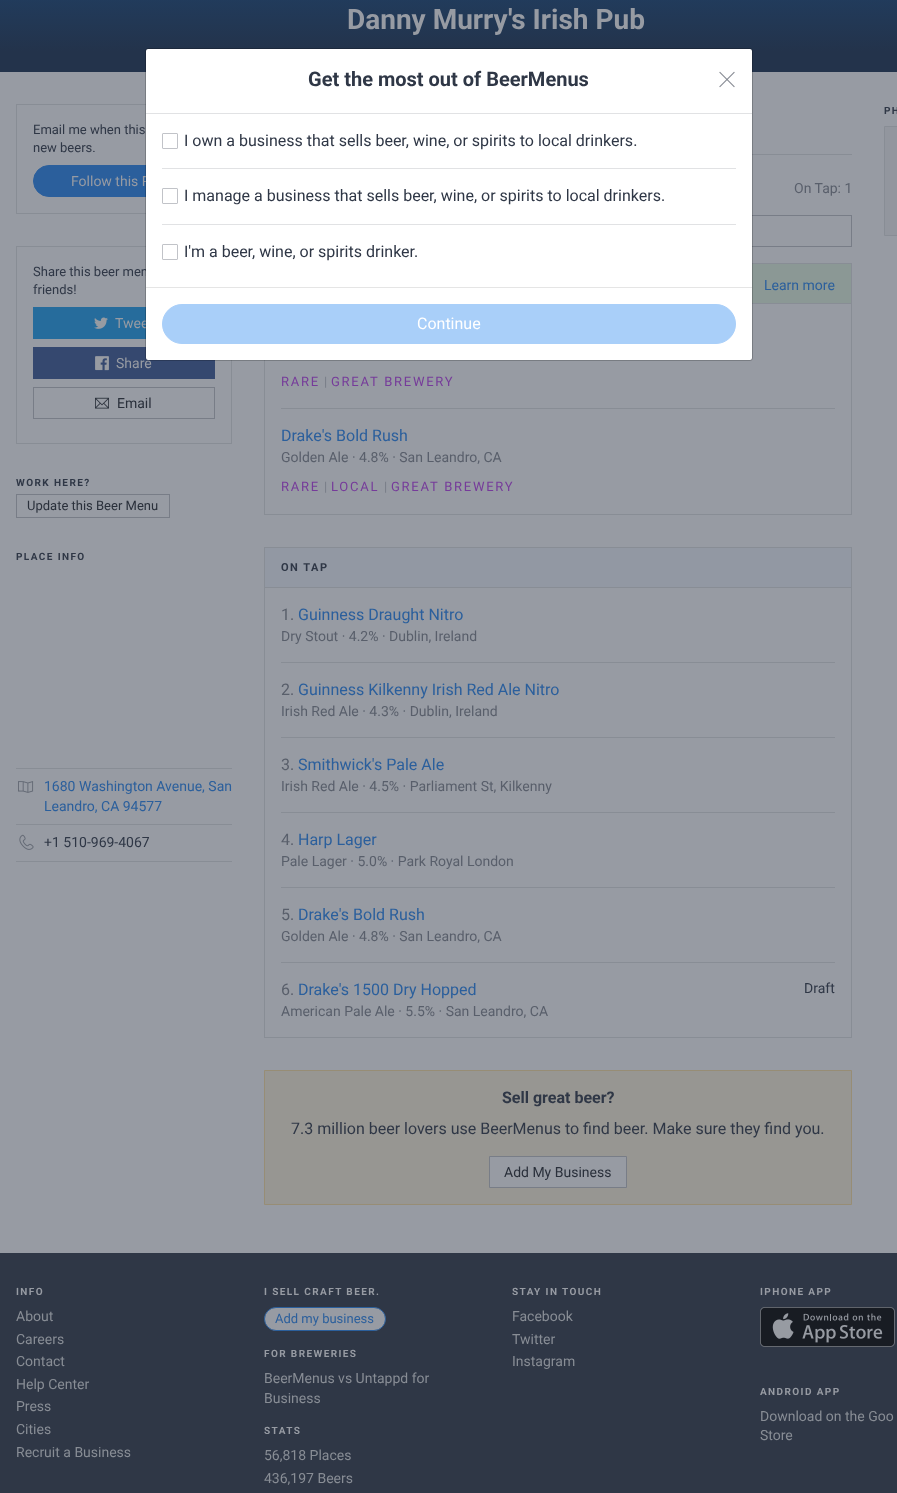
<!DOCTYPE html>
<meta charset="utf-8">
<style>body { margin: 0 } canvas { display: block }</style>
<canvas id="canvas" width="897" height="1493"></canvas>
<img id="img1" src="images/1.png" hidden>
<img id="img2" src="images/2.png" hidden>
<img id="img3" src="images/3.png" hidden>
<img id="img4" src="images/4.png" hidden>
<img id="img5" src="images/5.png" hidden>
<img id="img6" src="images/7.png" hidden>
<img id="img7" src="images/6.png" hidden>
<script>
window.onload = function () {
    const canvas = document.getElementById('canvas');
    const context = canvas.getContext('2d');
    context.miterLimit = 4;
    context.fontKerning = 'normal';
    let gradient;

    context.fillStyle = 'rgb(151, 155, 163)';
    context.fillRect(0, 0, 897, 1493);
    gradient = context.createLinearGradient(449, -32, 449, 72);
    gradient.addColorStop(0.2, 'rgb(33, 61, 95)');
    gradient.addColorStop(0.8, 'rgb(35, 51, 75)');
    context.fillStyle = gradient;
    context.fillRect(0, 0, 897, 72);
    context.fillStyle = 'rgb(146, 150, 158)';
    context.beginPath();
    context.rect(884.5, 126.5, 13, 109);
    context.fill();
    context.strokeStyle = 'rgb(136, 141, 149)';
    context.stroke();
    context.strokeRect(16.5, 104.5, 215, 109);
    context.fillStyle = 'rgb(43, 95, 156)';
    context.beginPath();
    context.roundRect(33.5, 165.5, 181, 31, 15.5);
    context.fill();
    context.strokeStyle = 'rgb(43, 95, 156)';
    context.stroke();
    context.strokeStyle = 'rgb(136, 141, 149)';
    context.strokeRect(16.5, 246.5, 215, 197);
    context.fillStyle = 'rgb(38, 108, 156)';
    context.fillRect(33, 307, 113, 32);
    context.drawImage(document.getElementById('img1'), 94, 317, 14, 12);
    context.fillStyle = 'rgb(53, 72, 111)';
    context.fillRect(33, 347, 182, 32);
    context.drawImage(document.getElementById('img2'), 95, 356, 14, 15);
    context.strokeStyle = 'rgb(120, 125, 135)';
    context.strokeRect(33.5, 387.5, 181, 31);
    context.drawImage(document.getElementById('img3'), 95, 397, 14, 12);
    context.strokeRect(16.5, 494.5, 153, 23);
    context.fillStyle = 'rgb(136, 141, 149)';
    context.fillRect(16, 768, 216, 1);
    context.fillRect(16, 861, 216, 1);
    context.drawImage(document.getElementById('img4'), 18, 781, 16, 12);
    context.fillRect(16, 824, 216, 1);
    context.drawImage(document.getElementById('img5'), 19, 834, 15, 16);
    context.fillRect(752, 154, 100, 1);
    context.strokeRect(264.5, 215.5, 587, 31);
    context.strokeStyle = 'rgb(136, 141, 149)';
    context.strokeRect(264.5, 263.5, 587, 251);
    context.fillStyle = 'rgb(139, 152, 149)';
    context.fillRect(752, 264, 99, 39);
    context.fillStyle = 'rgb(136, 141, 149)';
    context.fillRect(752, 303, 99, 1);
    context.fillRect(281, 408, 554, 1);
    context.strokeRect(264.5, 547.5, 587, 490);
    context.fillStyle = 'rgb(146, 152, 163)';
    context.fillRect(265, 548, 586, 39);
    context.fillStyle = 'rgb(136, 141, 149)';
    context.fillRect(265, 587, 586, 1);
    context.fillRect(281, 662, 554, 1);
    context.fillRect(281, 737, 554, 1);
    context.fillRect(281, 812, 554, 1);
    context.fillRect(281, 887, 554, 1);
    context.fillRect(281, 962, 554, 1);
    context.fillStyle = 'rgb(151, 150, 146)';
    context.beginPath();
    context.rect(264.5, 1070.5, 587, 134);
    context.fill();
    context.strokeStyle = 'rgb(151, 141, 117)';
    context.stroke();
    context.fillStyle = 'rgb(151, 155, 163)';
    context.beginPath();
    context.rect(489.5, 1156.5, 137, 31);
    context.fill();
    context.strokeStyle = 'rgb(120, 125, 135)';
    context.stroke();
    context.fillStyle = 'rgb(47, 55, 70)';
    context.fillRect(0, 1253, 897, 240);
    context.fillStyle = 'rgb(151, 155, 163)';
    context.beginPath();
    context.roundRect(264.5, 1307.5, 121, 23, 11.5);
    context.fill();
    context.strokeStyle = 'rgb(43, 95, 156)';
    context.stroke();
    context.drawImage(document.getElementById('img6'), 760, 1307, 135, 40);
    context.font = 'bold 28px Roboto';
    context.fillText('Danny Murry\'s Irish Pub', 347, 29);
    context.letterSpacing = '1.4px';
    context.font = 'bold 10px Roboto';
    context.fillStyle = 'rgb(47, 55, 70)';
    context.fillText('PH', 884, 114);
    context.letterSpacing = '0px';
    context.font = '13px Roboto';
    context.fillText('Email me when this', 33, 134);
    context.fillText('new beers.', 33, 152);
    context.font = '14px Roboto';
    context.fillStyle = 'rgb(151, 155, 163)';
    context.fillText('Follow this P', 71, 186);
    context.font = '13px Roboto';
    context.fillStyle = 'rgb(47, 55, 70)';
    context.fillText('Share this beer men', 33, 276);
    context.fillText('friends!', 33, 294);
    context.font = '14px Roboto';
    context.fillStyle = 'rgb(151, 155, 163)';
    context.fillText('Twee', 115, 328);
    context.fillText('Share', 116, 368);
    context.fillStyle = 'rgb(42, 48, 59)';
    context.fillText('Email', 117, 408);
    context.letterSpacing = '1.4px';
    context.font = 'bold 10px Roboto';
    context.fillStyle = 'rgb(47, 55, 70)';
    context.fillText('WORK HERE?', 16, 486);
    context.letterSpacing = '0px';
    context.font = '13px Roboto';
    context.fillStyle = 'rgb(42, 48, 59)';
    context.fillText('Update this Beer Menu', 27, 510);
    context.letterSpacing = '1.4px';
    context.font = 'bold 10px Roboto';
    context.fillStyle = 'rgb(47, 55, 70)';
    context.fillText('PLACE INFO', 16, 560);
    context.letterSpacing = '0px';
    context.font = '14px Roboto';
    context.fillStyle = 'rgb(43, 95, 156)';
    context.fillText('1680 Washington Avenue, San', 44, 791);
    context.fillText('Leandro, CA 94577', 44, 811);
    context.fillStyle = 'rgb(47, 55, 70)';
    context.fillText('+1 510-969-4067', 44, 847);
    context.fillStyle = 'rgb(89, 95, 107)';
    context.fillText('On Tap: 1', 794, 193);
    context.fillStyle = 'rgb(43, 95, 156)';
    context.fillText('Learn more', 764, 290);
    context.letterSpacing = '1.75px';
    context.font = '13px Roboto';
    context.fillStyle = 'rgb(118, 59, 154)';
    context.fillText('RARE', 281, 386);
    context.letterSpacing = '0px';
    context.fillStyle = 'rgb(120, 125, 135)';
    context.fillText('|', 324, 386);
    context.letterSpacing = '1.75px';
    context.fillStyle = 'rgb(118, 59, 154)';
    context.fillText('GREAT BREWERY', 331, 386);
    context.letterSpacing = '0px';
    context.font = '16px Roboto';
    context.fillStyle = 'rgb(43, 95, 156)';
    context.fillText('Drake\'s Bold Rush', 281, 441);
    context.font = '14px Roboto';
    context.fillStyle = 'rgb(89, 95, 107)';
    context.fillText('Golden Ale · 4.8% · San Leandro, CA', 281, 462);
    context.letterSpacing = '1.75px';
    context.font = '13px Roboto';
    context.fillStyle = 'rgb(118, 59, 154)';
    context.fillText('RARE', 281, 491);
    context.letterSpacing = '0px';
    context.fillStyle = 'rgb(120, 125, 135)';
    context.fillText('|', 324, 491);
    context.letterSpacing = '1.75px';
    context.fillStyle = 'rgb(118, 59, 154)';
    context.fillText('LOCAL', 331, 491);
    context.letterSpacing = '0px';
    context.fillStyle = 'rgb(120, 125, 135)';
    context.fillText('|', 384, 491);
    context.letterSpacing = '1.75px';
    context.fillStyle = 'rgb(118, 59, 154)';
    context.fillText('GREAT BREWERY', 391, 491);
    context.letterSpacing = '1.5px';
    context.font = 'bold 11px Roboto';
    context.fillStyle = 'rgb(47, 55, 70)';
    context.fillText('ON TAP', 281, 571);
    context.letterSpacing = '0px';
    context.font = '16px Roboto';
    context.fillStyle = 'rgb(89, 95, 107)';
    context.fillText('1.', 281, 620);
    context.fillStyle = 'rgb(43, 95, 156)';
    context.fillText('Guinness Draught Nitro', 298, 620);
    context.font = '14px Roboto';
    context.fillStyle = 'rgb(89, 95, 107)';
    context.fillText('Dry Stout · 4.2% · Dublin, Ireland', 281, 641);
    context.font = '16px Roboto';
    context.fillText('2.', 281, 695);
    context.fillStyle = 'rgb(43, 95, 156)';
    context.fillText('Guinness Kilkenny Irish Red Ale Nitro', 298, 695);
    context.font = '14px Roboto';
    context.fillStyle = 'rgb(89, 95, 107)';
    context.fillText('Irish Red Ale · 4.3% · Dublin, Ireland', 281, 716);
    context.font = '16px Roboto';
    context.fillText('3.', 281, 770);
    context.fillStyle = 'rgb(43, 95, 156)';
    context.fillText('Smithwick\'s Pale Ale', 298, 770);
    context.font = '14px Roboto';
    context.fillStyle = 'rgb(89, 95, 107)';
    context.fillText('Irish Red Ale · 4.5% · Parliament St, Kilkenny', 281, 791);
    context.font = '16px Roboto';
    context.fillText('4.', 281, 845);
    context.fillStyle = 'rgb(43, 95, 156)';
    context.fillText('Harp Lager', 298, 845);
    context.font = '14px Roboto';
    context.fillStyle = 'rgb(89, 95, 107)';
    context.fillText('Pale Lager · 5.0% · Park Royal London', 281, 866);
    context.font = '16px Roboto';
    context.fillText('5.', 281, 920);
    context.fillStyle = 'rgb(43, 95, 156)';
    context.fillText('Drake\'s Bold Rush', 298, 920);
    context.font = '14px Roboto';
    context.fillStyle = 'rgb(89, 95, 107)';
    context.fillText('Golden Ale · 4.8% · San Leandro, CA', 281, 941);
    context.font = '16px Roboto';
    context.fillText('6.', 281, 995);
    context.fillStyle = 'rgb(43, 95, 156)';
    context.fillText('Drake\'s 1500 Dry Hopped', 298, 995);
    context.font = '14px Roboto';
    context.fillStyle = 'rgb(89, 95, 107)';
    context.fillText('American Pale Ale · 5.5% · San Leandro, CA', 281, 1016);
    context.fillStyle = 'rgb(47, 55, 70)';
    context.fillText('Draft', 804, 993);
    context.font = 'bold 16px Roboto';
    context.fillText('Sell great beer?', 502, 1103);
    context.font = '16px Roboto';
    context.fillText('7.3 million beer lovers use BeerMenus to find beer. Make sure they find you.', 291, 1134);
    context.font = '14px Roboto';
    context.fillStyle = 'rgb(42, 48, 59)';
    context.fillText('Add My Business', 504, 1177);
    context.fillStyle = 'rgb(255, 255, 255)';
    context.beginPath();
    context.roundRect(146, 49, 606, 311, 2);
    context.fill();
    context.beginPath();
    context.roundRect(145.5, 48.5, 607, 312, 2.5);
    context.strokeStyle = 'rgba(0, 0, 0, 0.2)';
    context.stroke();
    context.fillStyle = 'rgb(225, 226, 228)';
    context.fillRect(146, 113, 606, 1);
    context.font = 'bold 20px Roboto';
    context.fillStyle = 'rgb(47, 55, 70)';
    context.fillText('Get the most out of BeerMenus', 308, 86);
    context.drawImage(document.getElementById('img7'), 719, 71, 16, 17);
    context.beginPath();
    context.roundRect(162.5, 133.5, 15, 15, 0.5);
    context.strokeStyle = 'rgb(193, 195, 200)';
    context.stroke();
    context.font = '16px Roboto';
    context.fillText('I own a business that sells beer, wine, or spirits to local drinkers.', 184, 146);
    context.fillStyle = 'rgb(225, 226, 228)';
    context.fillRect(162, 168, 574, 1);
    context.beginPath();
    context.roundRect(162.5, 188.5, 15, 15, 0.5);
    context.stroke();
    context.fillStyle = 'rgb(47, 55, 70)';
    context.fillText('I manage a business that sells beer, wine, or spirits to local drinkers.', 184, 201);
    context.fillStyle = 'rgb(225, 226, 228)';
    context.fillRect(162, 224, 574, 1);
    context.beginPath();
    context.roundRect(162.5, 244.5, 15, 15, 0.5);
    context.stroke();
    context.fillStyle = 'rgb(47, 55, 70)';
    context.fillText('I\'m a beer, wine, or spirits drinker.', 184, 257);
    context.fillStyle = 'rgb(229, 229, 229)';
    context.fillRect(146, 287, 606, 1);
    context.fillStyle = 'rgb(169, 207, 249)';
    context.beginPath();
    context.roundRect(162.5, 304.5, 573, 39, 19.5);
    context.fill();
    context.strokeStyle = 'rgb(169, 207, 249)';
    context.stroke();
    context.fillStyle = 'rgb(255, 255, 255)';
    context.fillText('Continue', 417, 329);
    context.letterSpacing = '1.4px';
    context.font = 'bold 10px Roboto';
    context.fillStyle = 'rgb(151, 155, 163)';
    context.fillText('INFO', 16, 1295);
    context.letterSpacing = '0px';
    context.font = '14px Roboto';
    context.fillStyle = 'rgb(136, 141, 149)';
    context.fillText('About', 16, 1321);
    context.fillText('Careers', 16, 1344);
    context.fillText('Contact', 16, 1366);
    context.fillText('Help Center', 16, 1389);
    context.fillText('Press', 16, 1411);
    context.fillText('Cities', 16, 1434);
    context.fillText('Recruit a Business', 16, 1457);
    context.letterSpacing = '1.4px';
    context.font = 'bold 10px Roboto';
    context.fillStyle = 'rgb(151, 155, 163)';
    context.fillText('I SELL CRAFT BEER.', 264, 1295);
    context.letterSpacing = '0px';
    context.font = '13px Roboto';
    context.fillStyle = 'rgb(43, 95, 156)';
    context.fillText('Add my business', 275, 1323);
    context.letterSpacing = '1.4px';
    context.font = 'bold 10px Roboto';
    context.fillStyle = 'rgb(151, 155, 163)';
    context.fillText('FOR BREWERIES', 264, 1357);
    context.letterSpacing = '0px';
    context.font = '14px Roboto';
    context.fillStyle = 'rgb(136, 141, 149)';
    context.fillText('BeerMenus vs Untappd for', 264, 1383);
    context.fillText('Business', 264, 1403);
    context.letterSpacing = '1.4px';
    context.font = 'bold 10px Roboto';
    context.fillStyle = 'rgb(151, 155, 163)';
    context.fillText('STATS', 264, 1434);
    context.letterSpacing = '0px';
    context.font = '14px Roboto';
    context.fillStyle = 'rgb(136, 141, 149)';
    context.fillText('56,818 Places', 264, 1460);
    context.fillText('436,197 Beers', 264, 1483);
    context.letterSpacing = '1.4px';
    context.font = 'bold 10px Roboto';
    context.fillStyle = 'rgb(151, 155, 163)';
    context.fillText('STAY IN TOUCH', 512, 1295);
    context.letterSpacing = '0px';
    context.font = '14px Roboto';
    context.fillStyle = 'rgb(136, 141, 149)';
    context.fillText('Facebook', 512, 1321);
    context.fillText('Twitter', 512, 1344);
    context.fillText('Instagram', 512, 1366);
    context.letterSpacing = '1.4px';
    context.font = 'bold 10px Roboto';
    context.fillStyle = 'rgb(151, 155, 163)';
    context.fillText('IPHONE APP', 760, 1295);
    context.fillText('ANDROID APP', 760, 1395);
    context.letterSpacing = '0px';
    context.font = '14px Roboto';
    context.fillStyle = 'rgb(136, 141, 149)';
    context.fillText('Download on the Goo', 760, 1421);
    context.fillText('Store', 760, 1440);
};
</script>
